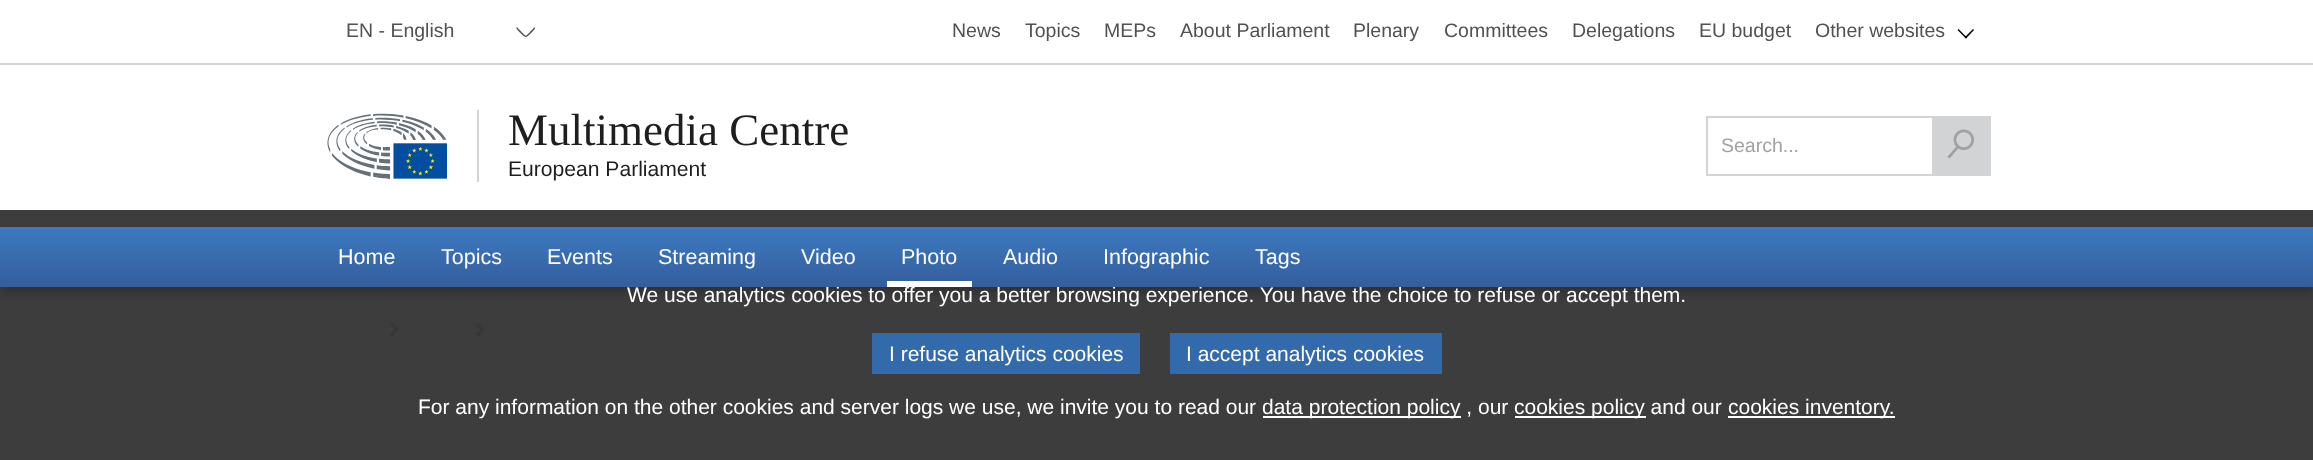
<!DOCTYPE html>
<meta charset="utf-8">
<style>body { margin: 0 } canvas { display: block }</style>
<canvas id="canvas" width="2313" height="460"></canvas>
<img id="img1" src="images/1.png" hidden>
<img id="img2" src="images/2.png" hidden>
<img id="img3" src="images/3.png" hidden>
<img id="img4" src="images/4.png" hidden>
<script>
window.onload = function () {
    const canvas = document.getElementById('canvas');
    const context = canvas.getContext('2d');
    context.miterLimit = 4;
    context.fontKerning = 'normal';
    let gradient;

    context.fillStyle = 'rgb(255, 255, 255)';
    context.fillRect(0, 0, 2313, 460);
    context.fillStyle = 'rgb(61, 61, 61)';
    context.fillRect(0, 210, 2313, 250);
    context.fillStyle = 'rgb(209, 211, 212)';
    context.fillRect(0, 63, 2313, 2);
    context.beginPath();
    context.moveTo(534.5, 27.5);
    context.bezierCurveTo(534.5, 29.5, 531.5, 31, 530.5, 32.5);
    context.bezierCurveTo(525.5, 37.5, 526, 37.5, 521, 32.5);
    context.bezierCurveTo(520, 31, 517, 29.5, 517, 27.5);
    context.strokeStyle = 'rgb(80, 81, 84)';
    context.lineWidth = 1.5;
    context.stroke();
    context.fillStyle = 'rgb(0, 0, 0)';
    context.beginPath();
    context.moveTo(1973, 29);
    context.lineTo(1974, 30);
    context.lineTo(1966, 38.5);
    context.lineTo(1964.5, 37.5);
    context.closePath();
    context.fill();
    context.beginPath();
    context.moveTo(1958.5, 29);
    context.lineTo(1967, 37.5);
    context.lineTo(1966, 38.5);
    context.lineTo(1957.5, 30);
    context.closePath();
    context.fill();
    context.drawImage(document.getElementById('img1'), 327, 113, 120, 66);
    context.fillStyle = 'rgb(209, 211, 212)';
    context.fillRect(477, 110, 2, 72);
    context.strokeStyle = 'rgb(209, 211, 212)';
    context.lineWidth = 2;
    context.strokeRect(1707, 117, 283, 58);
    context.fillRect(1932, 118, 57, 56);
    context.drawImage(document.getElementById('img2'), 1947, 129, 27, 30);
    context.fillStyle = 'rgba(0, 0, 0, 0.2)';
    context.filter = 'blur(4px)';
    context.beginPath();
    context.rect(0, 233, 2313, 60);
    context.fill();
    context.filter = 'none';
    context.drawImage(document.getElementById('img3'), 390, 322, 10, 16);
    context.drawImage(document.getElementById('img4'), 475, 322, 10, 16);
    context.fillStyle = 'rgb(50, 106, 171)';
    context.fillRect(872, 333, 268, 41);
    context.fillRect(1170, 333, 272, 41);
    context.fillStyle = 'rgb(255, 255, 255)';
    context.fillRect(1263, 416, 198, 2);
    context.fillRect(1515, 416, 131, 2);
    context.fillRect(1728, 416, 167, 2);
    context.font = '19.5px Liberation Sans';
    context.fillStyle = 'rgb(80, 81, 84)';
    context.fillText('EN - English', 346, 37);
    context.fillText('News', 952, 37);
    context.fillText('Topics', 1025, 37);
    context.fillText('MEPs', 1104, 37);
    context.fillText('About Parliament', 1180, 37);
    context.fillText('Plenary', 1353, 37);
    context.fillText('Committees', 1444, 37);
    context.fillText('Delegations', 1572, 37);
    context.fillText('EU budget', 1699, 37);
    context.fillText('Other websites', 1815, 37);
    context.font = '45px Liberation Serif';
    context.fillStyle = 'rgb(30, 30, 31)';
    context.fillText('Multimedia Centre', 508, 145);
    context.font = '21.1px Liberation Sans';
    context.fillText('European Parliament', 508, 176);
    context.font = '19.5px Liberation Sans';
    context.fillStyle = 'rgb(162, 161, 162)';
    context.fillText('Search...', 1721, 152);
    context.font = '21px Liberation Sans';
    context.fillStyle = 'rgb(255, 255, 255)';
    context.fillText('We use analytics cookies to offer you a better browsing experience. You have the choice to refuse or accept them.', 627, 302);
    gradient = context.createLinearGradient(1157, 226, 1157, 287);
    gradient.addColorStop(0, 'rgb(61, 122, 193)');
    gradient.addColorStop(1, 'rgb(52, 94, 156)');
    context.fillStyle = gradient;
    context.fillRect(0, 227, 2313, 60);
    context.font = '21.5px Liberation Sans';
    context.fillStyle = 'rgb(255, 255, 255)';
    context.fillText('Tags', 1255, 264);
    context.fillText('Infographic', 1103, 264);
    context.fillText('Audio', 1003, 264);
    context.fillRect(887, 281, 85, 6);
    context.fillText('Photo', 901, 264);
    context.fillText('Video', 801, 264);
    context.fillText('Streaming', 658, 264);
    context.fillText('Events', 547, 264);
    context.fillText('Topics', 441, 264);
    context.fillText('Home', 338, 264);
    context.font = '21px Liberation Sans';
    context.fillText('I refuse analytics cookies', 889, 361);
    context.fillText('I accept analytics cookies', 1186, 361);
    context.fillText('For any information on the other cookies and server logs we use, we invite you to read our', 418, 414);
    context.fillText('data protection policy , our', 1262, 414);
    context.fillText('cookies policy and our', 1514, 414);
    context.fillText('cookies inventory.', 1728, 414);
};
</script>
